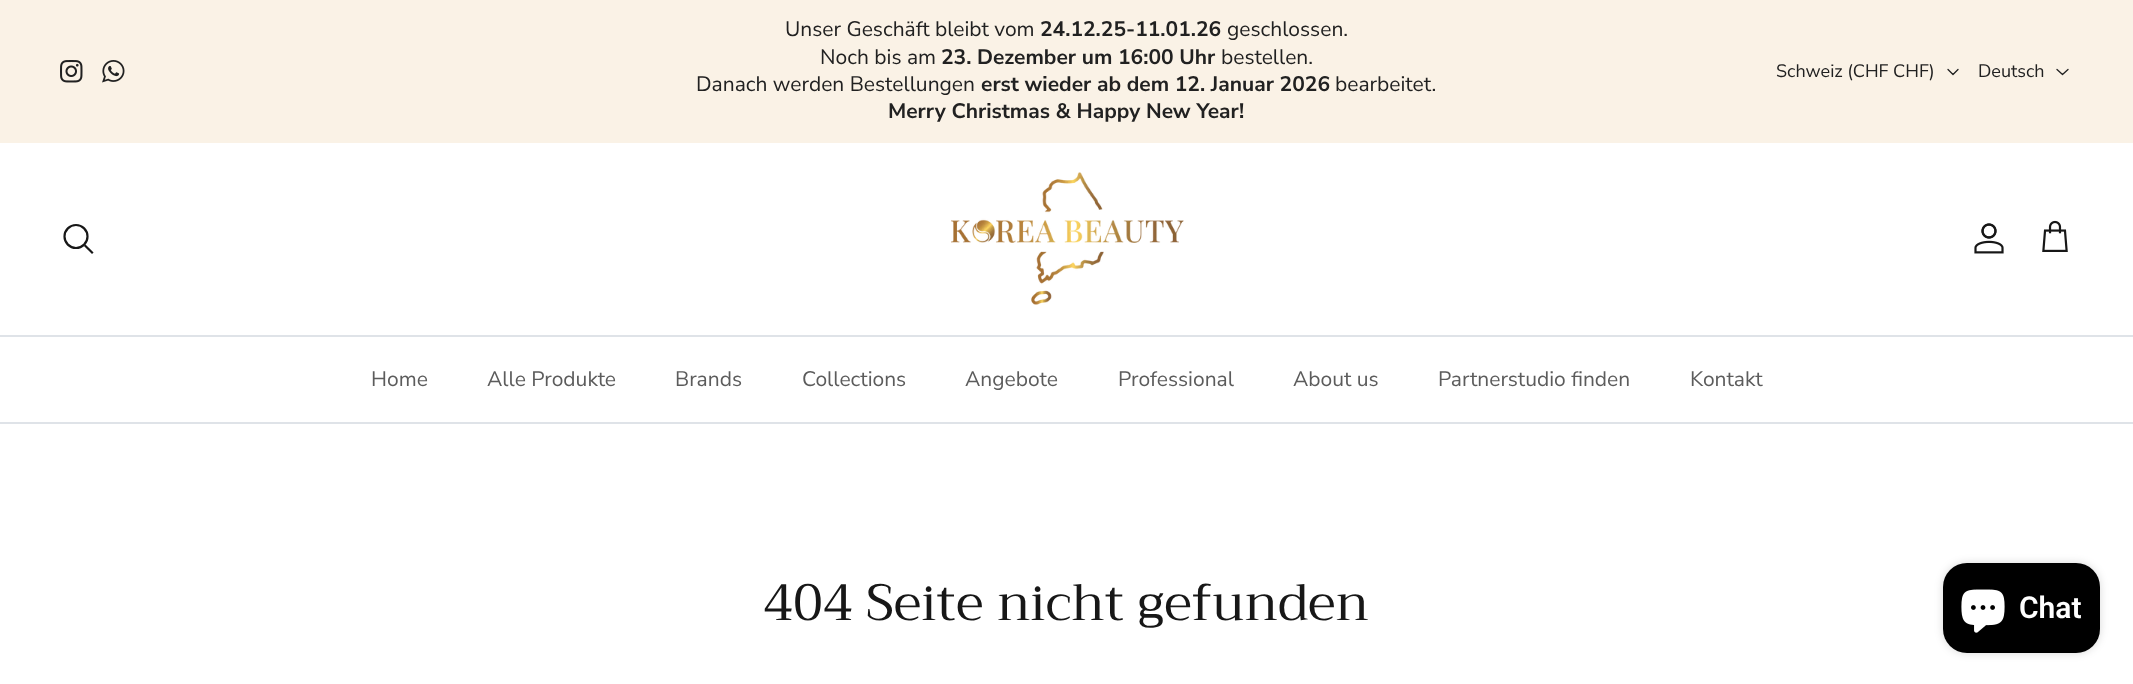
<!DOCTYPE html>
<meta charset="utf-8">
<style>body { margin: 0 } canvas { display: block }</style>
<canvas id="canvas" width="2133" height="684"></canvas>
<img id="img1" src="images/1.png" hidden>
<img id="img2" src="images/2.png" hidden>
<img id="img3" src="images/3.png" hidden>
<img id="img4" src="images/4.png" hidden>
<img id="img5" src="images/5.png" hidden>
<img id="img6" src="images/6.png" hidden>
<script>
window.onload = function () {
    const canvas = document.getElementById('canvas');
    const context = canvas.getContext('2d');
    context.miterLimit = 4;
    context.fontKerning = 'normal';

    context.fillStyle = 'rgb(255, 255, 255)';
    context.fillRect(0, 0, 2133, 684);
    context.fillStyle = 'rgb(250, 242, 230)';
    context.fillRect(0, 0, 2133, 143);
    context.drawImage(document.getElementById('img1'), 60, 60, 23, 23);
    context.drawImage(document.getElementById('img2'), 102, 60, 23, 23);
    context.beginPath();
    context.moveTo(1948, 69.5);
    context.lineTo(1953, 74.5);
    context.lineTo(1958, 69.5);
    context.strokeStyle = 'rgb(33, 33, 33)';
    context.lineWidth = 1.3;
    context.lineCap = 'round';
    context.lineJoin = 'round';
    context.stroke();
    context.beginPath();
    context.moveTo(2057, 69.5);
    context.lineTo(2062.5, 74.5);
    context.lineTo(2068, 69.5);
    context.stroke();
    context.fillStyle = 'rgb(223, 227, 232)';
    context.fillRect(0, 335, 2133, 2);
    context.beginPath();
    context.arc(76, 236.5, 11.5, 0, 2 * Math.PI);
    context.strokeStyle = 'rgb(23, 23, 23)';
    context.lineWidth = 2.2;
    context.stroke();
    context.beginPath();
    context.moveTo(85.5, 246);
    context.lineTo(92, 252.5);
    context.lineCap = 'square';
    context.lineJoin = 'miter';
    context.stroke();
    context.drawImage(document.getElementById('img3'), 951, 172, 233, 133);
    context.drawImage(document.getElementById('img4'), 1974, 223, 30, 31);
    context.drawImage(document.getElementById('img5'), 2042, 220, 26, 32);
    context.fillRect(0, 422, 2133, 2);
    context.fillStyle = 'rgba(0, 0, 0, 0.15)';
    context.filter = 'blur(4px)';
    context.beginPath();
    context.roundRect(1943, 563, 157, 90, 24);
    context.fill();
    context.filter = 'none';
    context.fillStyle = 'rgb(0, 0, 0)';
    context.beginPath();
    context.roundRect(1943, 563, 157, 90, 24);
    context.fill();
    context.drawImage(document.getElementById('img6'), 1961, 589, 44, 44);
    context.font = '21px Nunito Sans';
    context.fillStyle = 'rgb(33, 33, 33)';
    context.fillText('Unser Geschäft bleibt vom', 785, 36);
    context.font = 'bold 21px Nunito Sans';
    context.fillText('24.12.25-11.01.26', 1040, 36);
    context.font = '21px Nunito Sans';
    context.fillText('geschlossen.', 1227, 36);
    context.fillText('Noch bis am', 820, 64);
    context.font = 'bold 21px Nunito Sans';
    context.fillText('23. Dezember um 16:00 Uhr', 941, 64);
    context.font = '21px Nunito Sans';
    context.fillText('bestellen.', 1221, 64);
    context.fillText('Danach werden Bestellungen', 696, 91);
    context.font = 'bold 21px Nunito Sans';
    context.fillText('erst wieder ab dem 12. Januar 2026', 981, 91);
    context.font = '21px Nunito Sans';
    context.fillText('bearbeitet.', 1335, 91);
    context.font = 'bold 21px Nunito Sans';
    context.fillText('Merry Christmas & Happy New Year!', 888, 118);
    context.font = '18px Nunito Sans';
    context.fillText('Schweiz (CHF CHF)', 1776, 77);
    context.fillText('Deutsch', 1978, 77);
    context.font = '21px Nunito Sans';
    context.fillStyle = 'rgb(92, 92, 92)';
    context.fillText('Home', 371, 386);
    context.fillText('Alle Produkte', 487, 386);
    context.fillText('Brands', 675, 386);
    context.fillText('Collections', 802, 386);
    context.fillText('Angebote', 965, 386);
    context.fillText('Professional', 1118, 386);
    context.fillText('About us', 1293, 386);
    context.fillText('Partnerstudio finden', 1438, 386);
    context.fillText('Kontakt', 1690, 386);
    context.font = '51px Trirong';
    context.fillStyle = 'rgb(23, 23, 23)';
    context.fillText('404 Seite nicht gefunden', 763, 620);
    context.font = '600 30px Roboto';
    context.fillStyle = 'rgb(255, 255, 255)';
    context.fillText('Chat', 2019, 618);
};
</script>
